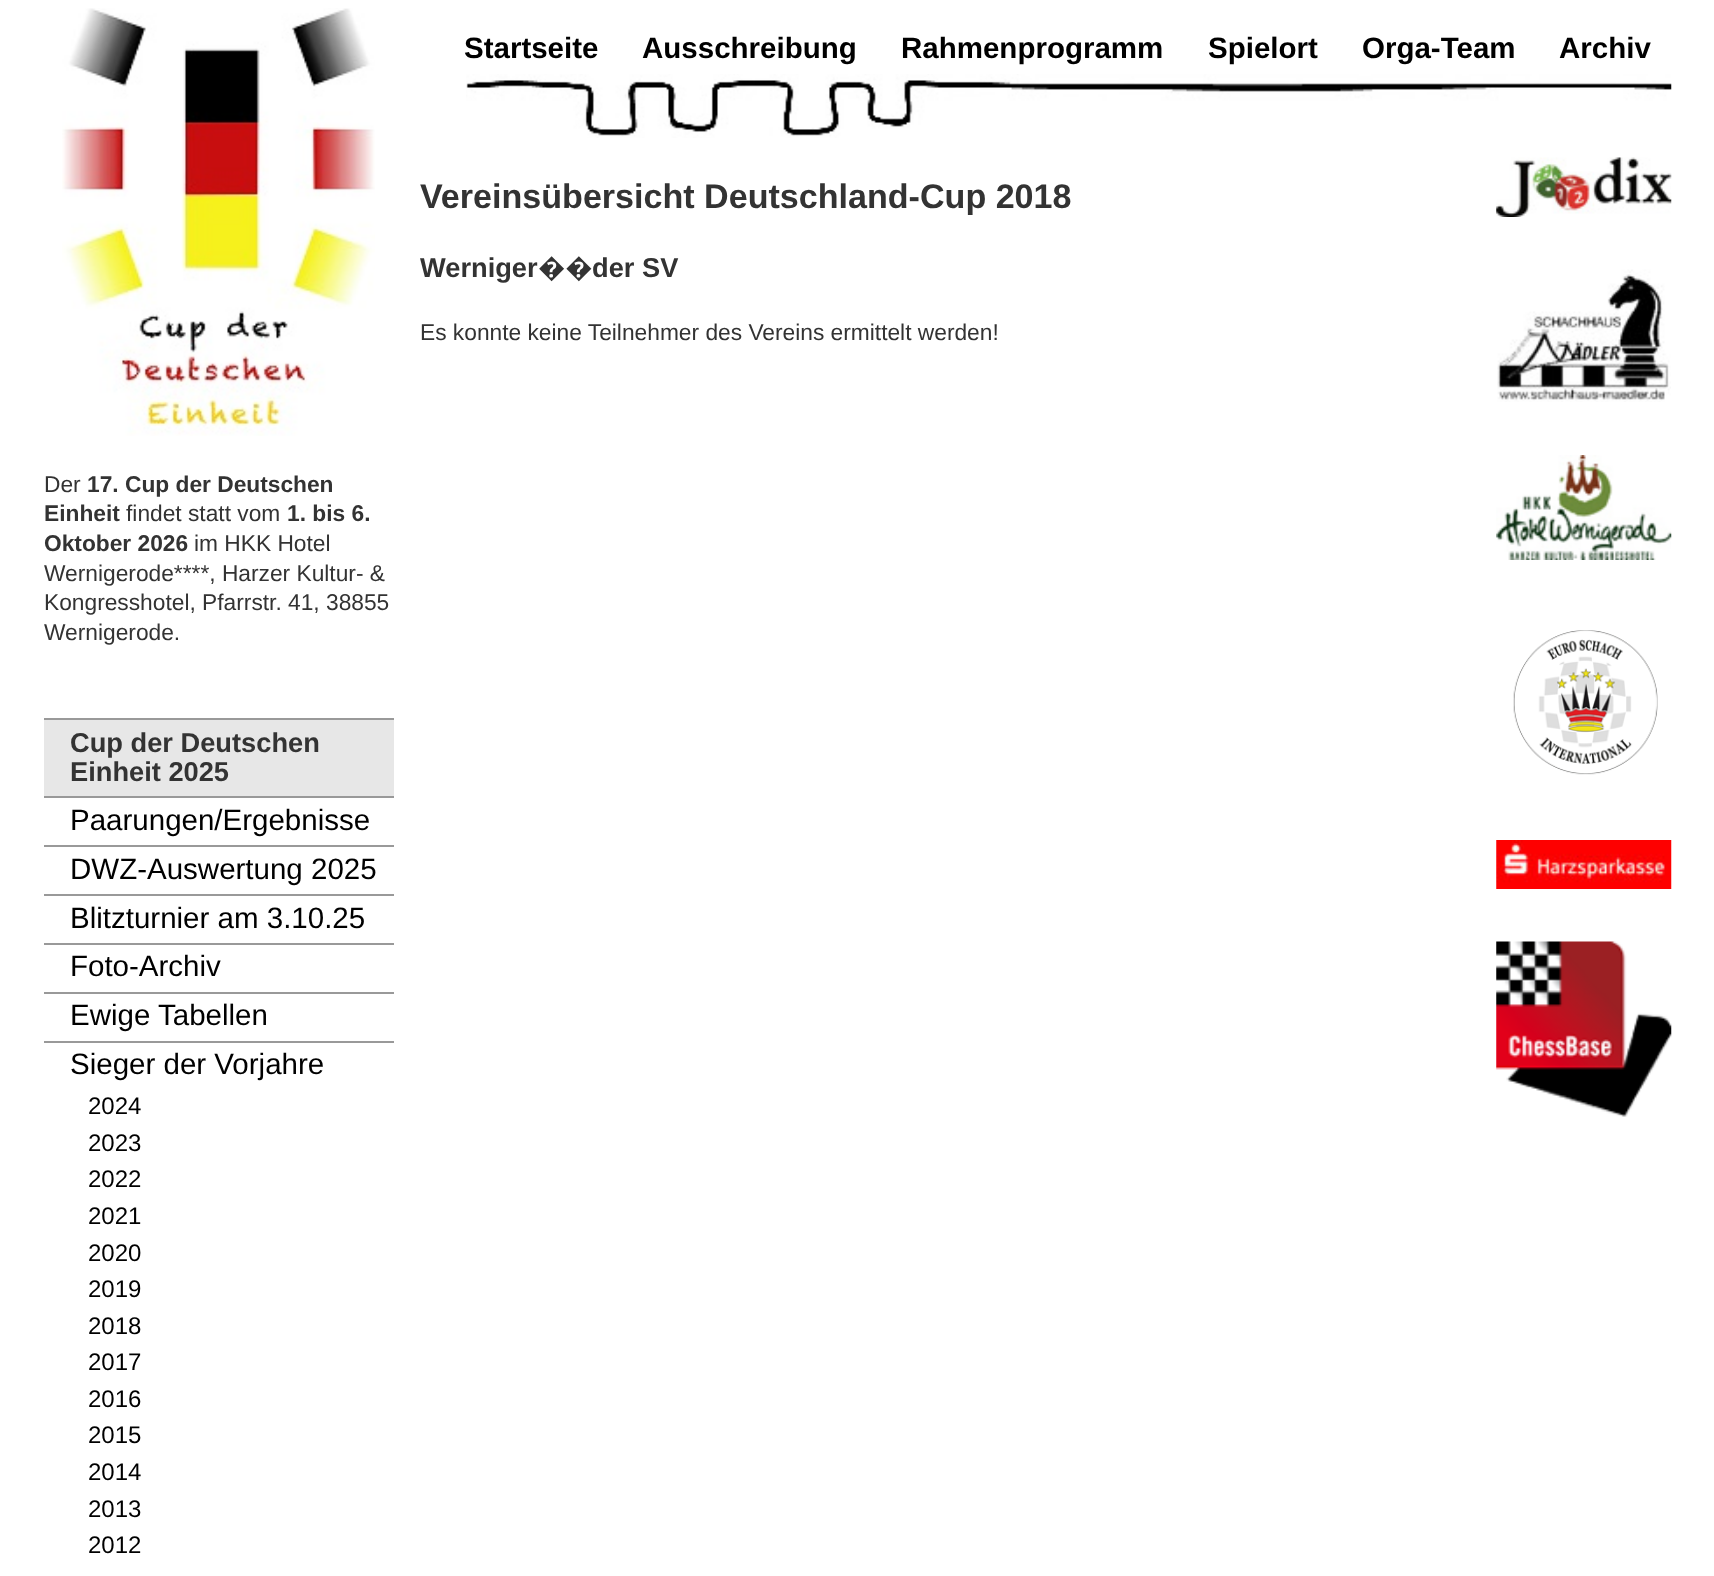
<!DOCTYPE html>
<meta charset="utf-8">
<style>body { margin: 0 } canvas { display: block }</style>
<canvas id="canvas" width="1714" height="1576"></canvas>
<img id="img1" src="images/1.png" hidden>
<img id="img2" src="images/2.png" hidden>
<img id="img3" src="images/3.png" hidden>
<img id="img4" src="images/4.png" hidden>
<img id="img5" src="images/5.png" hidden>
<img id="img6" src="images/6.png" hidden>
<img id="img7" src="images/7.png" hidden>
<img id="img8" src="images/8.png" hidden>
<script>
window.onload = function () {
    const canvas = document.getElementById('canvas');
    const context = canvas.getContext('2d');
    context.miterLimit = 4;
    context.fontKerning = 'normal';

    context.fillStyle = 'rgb(255, 255, 255)';
    context.fillRect(0, 0, 1714, 1576);
    context.drawImage(document.getElementById('img1'), 466, 74, 1206, 64);
    context.drawImage(document.getElementById('img2'), 1496, 157, 176, 60);
    context.drawImage(document.getElementById('img3'), 1497, 269, 174, 133);
    context.drawImage(document.getElementById('img4'), 1496, 455, 176, 105);
    context.drawImage(document.getElementById('img5'), 1513, 630, 145, 145);
    context.drawImage(document.getElementById('img6'), 1496, 840, 176, 49);
    context.drawImage(document.getElementById('img7'), 1496, 941, 176, 176);
    context.drawImage(document.getElementById('img8'), 62, 8, 313, 428);
    context.fillStyle = 'rgb(231, 231, 231)';
    context.fillRect(44, 720, 350, 76);
    context.fillStyle = 'rgb(153, 153, 153)';
    context.fillRect(44, 718, 350, 2);
    context.fillRect(44, 796, 350, 2);
    context.fillRect(44, 845, 350, 2);
    context.fillRect(44, 894, 350, 2);
    context.fillRect(44, 943, 350, 2);
    context.fillRect(44, 992, 350, 2);
    context.fillRect(44, 1041, 350, 2);
    context.font = 'bold 29.5px Liberation Sans';
    context.fillStyle = 'rgb(0, 0, 0)';
    context.fillText('Startseite', 464, 58);
    context.fillText('Ausschreibung', 642, 58);
    context.fillText('Rahmenprogramm', 901, 58);
    context.fillText('Spielort', 1208, 58);
    context.fillText('Orga-Team', 1362, 58);
    context.fillText('Archiv', 1559, 58);
    context.font = 'bold 34.1px Liberation Sans';
    context.fillStyle = 'rgb(51, 51, 51)';
    context.fillText('Vereinsübersicht Deutschland-Cup 2018', 420, 208);
    context.font = 'bold 27.25px Liberation Sans';
    context.fillText('Werniger', 420, 277);
    context.font = 'bold 27.25px Noto Sans';
    context.fillText('��', 538, 277);
    context.font = 'bold 27.25px Liberation Sans';
    context.fillText('der SV', 592, 277);
    context.font = '22.75px Liberation Sans';
    context.fillText('Es konnte keine Teilnehmer des Vereins ermittelt werden!', 420, 340);
    context.fillText('Der', 44, 492);
    context.font = 'bold 22.75px Liberation Sans';
    context.fillText('17. Cup der Deutschen', 87, 492);
    context.fillText('Einheit', 44, 521);
    context.font = '22.75px Liberation Sans';
    context.fillText('findet statt vom', 126, 521);
    context.font = 'bold 22.75px Liberation Sans';
    context.fillText('1. bis 6.', 287, 521);
    context.fillText('Oktober 2026', 44, 551);
    context.font = '22.75px Liberation Sans';
    context.fillText('im HKK Hotel', 194, 551);
    context.fillText('Wernigerode****, Harzer Kultur- &', 44, 581);
    context.fillText('Kongresshotel, Pfarrstr. 41, 38855', 44, 610);
    context.fillText('Wernigerode.', 44, 640);
    context.font = 'bold 27.25px Liberation Sans';
    context.fillText('Cup der Deutschen', 70, 752);
    context.fillText('Einheit 2025', 70, 781);
    context.font = '29.5px Liberation Sans';
    context.fillStyle = 'rgb(0, 0, 0)';
    context.fillText('Paarungen/Ergebnisse', 70, 830);
    context.fillText('DWZ-Auswertung 2025', 70, 879);
    context.fillText('Blitzturnier am 3.10.25', 70, 928);
    context.fillText('Foto-Archiv', 70, 976);
    context.fillText('Ewige Tabellen', 70, 1025);
    context.fillText('Sieger der Vorjahre', 70, 1074);
    context.font = '24px Liberation Sans';
    context.fillText('2024', 88, 1114);
    context.fillText('2023', 88, 1151);
    context.fillText('2022', 88, 1187);
    context.fillText('2021', 88, 1224);
    context.fillText('2020', 88, 1261);
    context.fillText('2019', 88, 1297);
    context.fillText('2018', 88, 1334);
    context.fillText('2017', 88, 1370);
    context.fillText('2016', 88, 1407);
    context.fillText('2015', 88, 1443);
    context.fillText('2014', 88, 1480);
    context.fillText('2013', 88, 1517);
    context.fillText('2012', 88, 1553);
};
</script>
